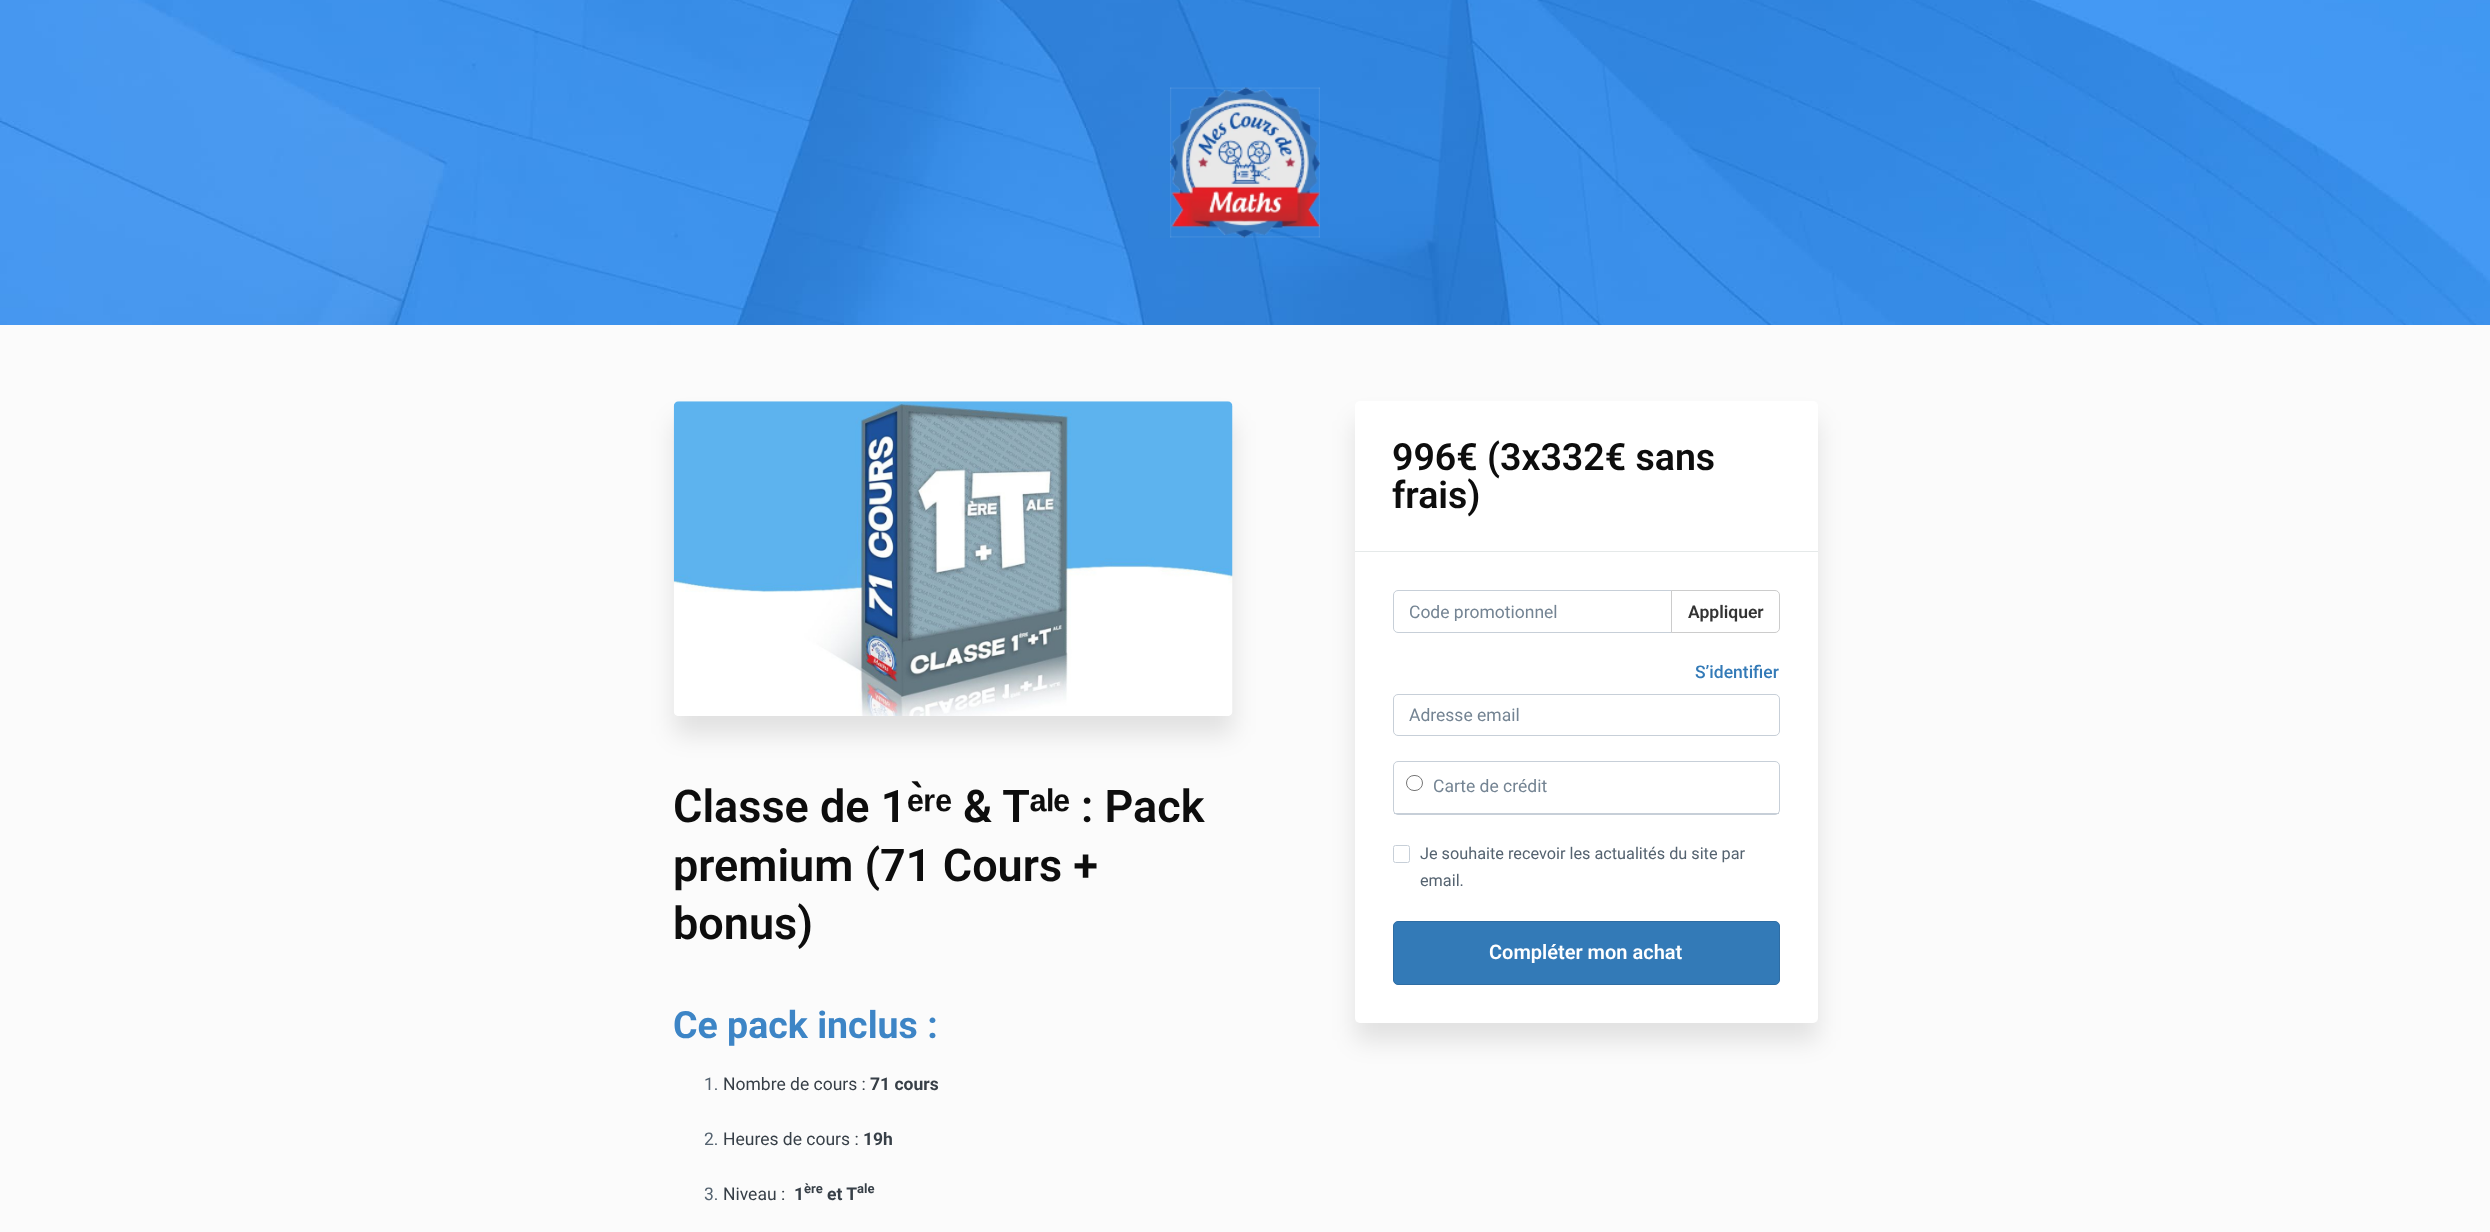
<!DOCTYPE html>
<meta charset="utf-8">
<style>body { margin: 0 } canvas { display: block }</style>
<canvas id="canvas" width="2490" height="1232"></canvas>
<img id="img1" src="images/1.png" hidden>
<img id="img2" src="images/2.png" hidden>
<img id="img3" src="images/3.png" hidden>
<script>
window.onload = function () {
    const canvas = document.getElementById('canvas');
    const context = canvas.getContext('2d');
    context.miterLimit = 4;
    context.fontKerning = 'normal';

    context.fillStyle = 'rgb(251, 251, 251)';
    context.fillRect(0, 0, 2490, 1232);
    context.drawImage(document.getElementById('img1'), 0, 0, 2490, 325);
    context.drawImage(document.getElementById('img2'), 1170, 87, 150, 151);
    context.fillStyle = 'rgba(0, 0, 0, 0.1)';
    context.filter = 'blur(12.5px)';
    context.beginPath();
    context.roundRect(674, 420, 559, 315, 5);
    context.fill();
    context.filter = 'none';
    context.drawImage(document.getElementById('img3'), 673, 401, 560, 315);
    context.filter = 'blur(12.5px)';
    context.beginPath();
    context.roundRect(1355, 420, 463, 621, 5);
    context.fill();
    context.filter = 'none';
    context.fillStyle = 'rgb(255, 255, 255)';
    context.beginPath();
    context.roundRect(1355, 401, 463, 622, 5);
    context.fill();
    context.fillStyle = 'rgb(229, 233, 233)';
    context.fillRect(1355, 551, 463, 1);
    context.beginPath();
    context.roundRect(1393.5, 590.5, 279, 42, [4.5, 0, 0, 4.5]);
    context.strokeStyle = 'rgb(199, 207, 216)';
    context.stroke();
    context.fillStyle = 'rgb(255, 255, 255)';
    context.beginPath();
    context.roundRect(1671.5, 590.5, 108, 42, [0, 4.5, 4.5, 0]);
    context.fill();
    context.strokeStyle = 'rgb(204, 204, 204)';
    context.stroke();
    context.beginPath();
    context.roundRect(1393.5, 694.5, 386, 41, 4.5);
    context.strokeStyle = 'rgb(199, 207, 216)';
    context.stroke();
    context.beginPath();
    context.roundRect(1393.5, 761.5, 386, 53, 4.5);
    context.stroke();
    context.fillStyle = 'rgb(199, 207, 216)';
    context.fillRect(1394, 813, 385, 1);
    context.beginPath();
    context.roundRect(1406.5, 775.5, 16, 15, 7.5);
    context.strokeStyle = 'rgb(118, 118, 118)';
    context.stroke();
    context.beginPath();
    context.roundRect(1393.5, 845.5, 16, 17, 2);
    context.strokeStyle = 'rgb(199, 207, 216)';
    context.stroke();
    context.fillStyle = 'rgb(51, 122, 183)';
    context.beginPath();
    context.roundRect(1393.5, 921.5, 386, 63, 4.5);
    context.fill();
    context.strokeStyle = 'rgb(46, 109, 164)';
    context.stroke();
    context.font = '600 45px Roboto';
    context.fillStyle = 'rgb(13, 13, 13)';
    context.fillText('Classe de 1', 673, 822);
    context.font = 'bold 45px Liberation Sans';
    context.fillText('ᵉ̀ʳᵉ', 907, 822);
    context.font = '600 45px Roboto';
    context.fillText('& T', 963, 822);
    context.font = 'bold 45px Liberation Sans';
    context.fillText('ᵃˡᵉ', 1030, 822);
    context.font = '600 45px Roboto';
    context.fillText(': Pack', 1081, 822);
    context.fillText('premium (71 Cours +', 673, 881);
    context.fillText('bonus)', 673, 939);
    context.font = 'bold 37.5px Roboto';
    context.fillStyle = 'rgb(61, 133, 198)';
    context.fillText('Ce pack inclus :', 673, 1038);
    context.font = '17.5px Roboto';
    context.fillStyle = 'rgb(85, 99, 112)';
    context.fillText('1.', 704, 1090);
    context.fillStyle = 'rgb(55, 63, 71)';
    context.fillText('Nombre de cours :', 723, 1090);
    context.font = 'bold 17.5px Roboto';
    context.fillText('71 cours', 870, 1090);
    context.font = '17.5px Roboto';
    context.fillStyle = 'rgb(85, 99, 112)';
    context.fillText('2.', 704, 1145);
    context.fillStyle = 'rgb(55, 63, 71)';
    context.fillText('Heures de cours :', 723, 1145);
    context.font = 'bold 17.5px Roboto';
    context.fillText('19h', 863, 1145);
    context.font = '17.5px Roboto';
    context.fillStyle = 'rgb(85, 99, 112)';
    context.fillText('3.', 704, 1200);
    context.fillStyle = 'rgb(55, 63, 71)';
    context.fillText('Niveau :', 723, 1200);
    context.font = 'bold 17.5px Roboto';
    context.fillText('1', 794, 1200);
    context.font = 'bold 13px Roboto';
    context.fillText('ère', 804, 1193);
    context.font = 'bold 17.5px Roboto';
    context.fillText('et T', 827, 1200);
    context.font = 'bold 13px Roboto';
    context.fillText('ale', 857, 1193);
    context.font = '600 37.5px Roboto';
    context.fillStyle = 'rgb(13, 13, 13)';
    context.fillText('996€ (3x332€ sans', 1392, 470);
    context.fillText('frais)', 1392, 508);
    context.save();
    context.beginPath();
    context.rect(1409, 601, 247, 20);
    context.clip();
    context.font = '17.5px Roboto';
    context.fillStyle = 'rgb(116, 132, 147)';
    context.fillText('Code promotionnel', 1409, 618);
    context.restore();
    context.font = '600 17.5px Roboto';
    context.fillStyle = 'rgb(51, 51, 51)';
    context.fillText('Appliquer', 1688, 618);
    context.font = '500 17.5px Roboto';
    context.fillStyle = 'rgb(51, 122, 183)';
    context.fillText('S’identifier', 1695, 678);
    context.font = '17.5px Roboto';
    context.fillStyle = 'rgb(116, 132, 147)';
    context.fillText('Adresse email', 1409, 721);
    context.fillText('Carte de crédit', 1433, 792);
    context.font = '16.25px Roboto';
    context.fillStyle = 'rgb(85, 99, 112)';
    context.fillText('Je souhaite recevoir les actualités du site par', 1420, 859);
    context.fillText('email.', 1420, 886);
    context.font = '600 20px Roboto';
    context.fillStyle = 'rgb(255, 255, 255)';
    context.fillText('Compléter mon achat', 1489, 959);
};
</script>
